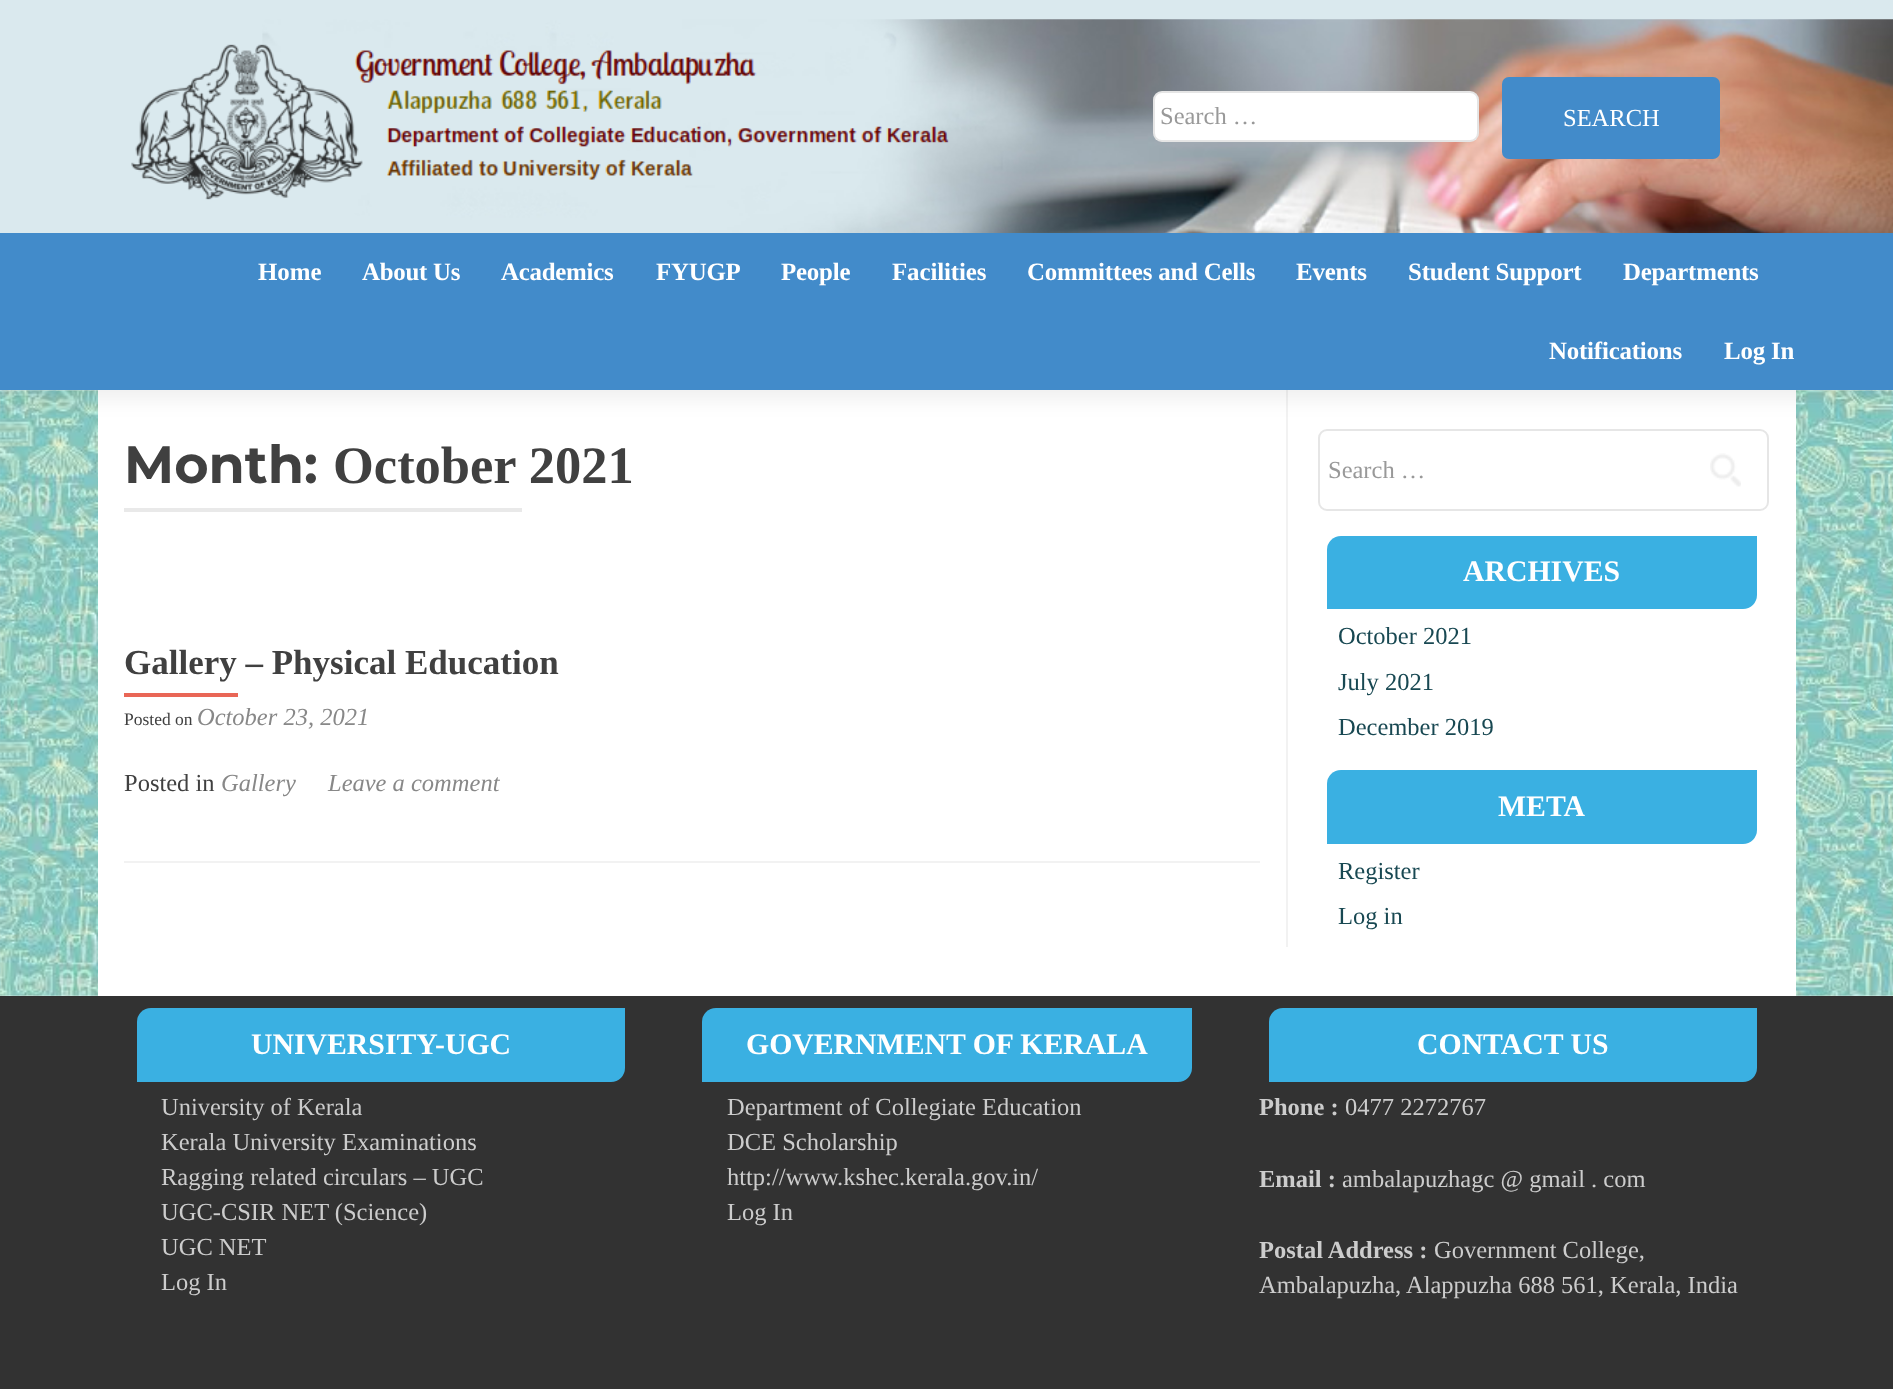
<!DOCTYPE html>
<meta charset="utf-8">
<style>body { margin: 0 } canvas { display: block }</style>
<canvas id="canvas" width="1893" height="1389"></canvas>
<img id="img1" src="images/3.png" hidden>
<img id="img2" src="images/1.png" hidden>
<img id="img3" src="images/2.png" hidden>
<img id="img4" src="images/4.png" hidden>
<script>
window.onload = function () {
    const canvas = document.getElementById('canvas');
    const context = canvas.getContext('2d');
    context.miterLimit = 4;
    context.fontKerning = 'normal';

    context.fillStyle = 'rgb(255, 255, 255)';
    context.fillRect(0, 0, 1893, 1389);
    context.drawImage(document.getElementById('img1'), 0, 390, 1893, 606);
    context.fillRect(98, 390, 1698, 606);
    context.fillStyle = 'rgb(242, 242, 242)';
    context.fillRect(1286, 390, 2, 557);
    context.fillStyle = 'rgba(50, 50, 50, 0.08)';
    context.filter = 'blur(9.5px)';
    context.beginPath();
    context.rect(0, 9, 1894, 390);
    context.fill();
    context.filter = 'none';
    context.fillStyle = 'rgb(218, 233, 238)';
    context.fillRect(0, 0, 1893, 233);
    context.drawImage(document.getElementById('img2'), 262, 19, 1631, 214);
    context.drawImage(document.getElementById('img3'), 131, 44, 818, 156);
    context.fillStyle = 'rgb(255, 255, 255)';
    context.beginPath();
    context.roundRect(1153, 91, 326, 51, 9);
    context.fill();
    context.beginPath();
    context.roundRect(1154, 92, 324, 49, 8);
    context.strokeStyle = 'rgba(0, 0, 0, 0.1)';
    context.lineWidth = 2;
    context.stroke();
    context.fillStyle = 'rgb(66, 139, 202)';
    context.beginPath();
    context.roundRect(1502, 77, 218, 82, 7);
    context.fill();
    context.fillRect(0, 233, 1893, 157);
    context.fillStyle = 'rgb(233, 233, 233)';
    context.fillRect(124, 508, 398, 4);
    context.fillStyle = 'rgb(242, 242, 242)';
    context.fillRect(124, 861, 1136, 2);
    context.fillStyle = 'rgb(233, 102, 86)';
    context.fillRect(124, 693, 114, 4);
    context.beginPath();
    context.roundRect(1319, 430, 449, 80, 8);
    context.strokeStyle = 'rgb(230, 230, 230)';
    context.stroke();
    context.drawImage(document.getElementById('img4'), 1710, 453, 31, 34);
    context.fillStyle = 'rgb(58, 176, 226)';
    context.beginPath();
    context.roundRect(1327, 536, 430, 73, [14, 0, 14, 0]);
    context.fill();
    context.beginPath();
    context.roundRect(1327, 770, 430, 74, [14, 0, 14, 0]);
    context.fill();
    context.fillStyle = 'rgb(50, 50, 50)';
    context.fillRect(0, 996, 1893, 393);
    context.fillStyle = 'rgb(58, 176, 226)';
    context.beginPath();
    context.roundRect(137, 1008, 488, 74, [14, 0, 14, 0]);
    context.fill();
    context.beginPath();
    context.roundRect(702, 1008, 490, 74, [14, 0, 14, 0]);
    context.fill();
    context.beginPath();
    context.roundRect(1269, 1008, 488, 74, [14, 0, 14, 0]);
    context.fill();
    context.font = '24.5px Liberation Serif';
    context.fillStyle = 'rgb(153, 153, 153)';
    context.fillText('Search …', 1160, 124);
    context.fillStyle = 'rgb(255, 255, 255)';
    context.fillText('SEARCH', 1563, 126);
    context.font = 'bold 24.9px Liberation Serif';
    context.fillText('Home', 258, 280);
    context.letterSpacing = '-0.25px';
    context.fillText('About Us', 362, 280);
    context.fillText('Academics', 501, 280);
    context.fillText('FYUGP', 656, 280);
    context.letterSpacing = '-0.2px';
    context.fillText('People', 781, 280);
    context.letterSpacing = '-0.1px';
    context.fillText('Facilities', 892, 280);
    context.letterSpacing = '-0.2px';
    context.fillText('Committees and Cells', 1027, 280);
    context.fillText('Events', 1296, 280);
    context.fillText('Student Support', 1408, 280);
    context.letterSpacing = '-0.25px';
    context.fillText('Departments', 1623, 280);
    context.letterSpacing = '-0.2px';
    context.fillText('Notifications', 1549, 359);
    context.fillText('Log In', 1724, 359);
    context.letterSpacing = '0px';
    context.font = '100 52.5px Montserrat';
    context.fillStyle = 'rgb(64, 64, 64)';
    context.fillText('Month:', 124, 483);
    context.font = 'bold 52.5px Liberation Serif';
    context.fillText('October 2021', 333, 483);
    context.font = 'bold 35px Liberation Serif';
    context.fillText('Gallery – Physical Education', 124, 674);
    context.font = '17.5px Liberation Serif';
    context.fillText('Posted on', 124, 725);
    context.font = 'italic 24.5px Liberation Serif';
    context.fillStyle = 'rgb(136, 136, 136)';
    context.fillText('October 23, 2021', 197, 725);
    context.font = '24.5px Liberation Serif';
    context.fillStyle = 'rgb(64, 64, 64)';
    context.fillText('Posted in', 124, 791);
    context.font = 'italic 24.5px Liberation Serif';
    context.fillStyle = 'rgb(136, 136, 136)';
    context.fillText('Gallery', 221, 791);
    context.fillText('Leave a comment', 328, 791);
    context.font = '24.5px Liberation Serif';
    context.fillStyle = 'rgb(153, 153, 153)';
    context.fillText('Search …', 1328, 478);
    context.font = 'bold 29.75px Liberation Serif';
    context.fillStyle = 'rgb(255, 255, 255)';
    context.fillText('ARCHIVES', 1463, 581);
    context.font = '24.5px Liberation Serif';
    context.fillStyle = 'rgb(24, 72, 82)';
    context.fillText('October 2021', 1338, 644);
    context.fillText('July 2021', 1338, 690);
    context.fillText('December 2019', 1338, 735);
    context.font = 'bold 29.75px Liberation Serif';
    context.fillStyle = 'rgb(255, 255, 255)';
    context.fillText('META', 1498, 816);
    context.font = '24.5px Liberation Serif';
    context.fillStyle = 'rgb(24, 72, 82)';
    context.fillText('Register', 1338, 879);
    context.fillText('Log in', 1338, 924);
    context.font = 'bold 29.75px Liberation Serif';
    context.fillStyle = 'rgb(255, 255, 255)';
    context.fillText('UNIVERSITY-UGC', 251, 1054);
    context.font = '24.5px Liberation Serif';
    context.fillStyle = 'rgb(204, 204, 204)';
    context.fillText('University of Kerala', 161, 1115);
    context.fillText('Kerala University Examinations', 161, 1150);
    context.fillText('Ragging related circulars – UGC', 161, 1185);
    context.fillText('UGC-CSIR NET (Science)', 161, 1220);
    context.fillText('UGC NET', 161, 1255);
    context.fillText('Log In', 161, 1290);
    context.font = 'bold 29.75px Liberation Serif';
    context.fillStyle = 'rgb(255, 255, 255)';
    context.fillText('GOVERNMENT OF KERALA', 746, 1054);
    context.font = '24.5px Liberation Serif';
    context.fillStyle = 'rgb(204, 204, 204)';
    context.fillText('Department of Collegiate Education', 727, 1115);
    context.fillText('DCE Scholarship', 727, 1150);
    context.fillText('http://www.kshec.kerala.gov.in/', 727, 1185);
    context.fillText('Log In', 727, 1220);
    context.font = 'bold 29.75px Liberation Serif';
    context.fillStyle = 'rgb(255, 255, 255)';
    context.fillText('CONTACT US', 1417, 1054);
    context.font = 'bold 24.5px Liberation Serif';
    context.fillStyle = 'rgb(204, 204, 204)';
    context.fillText('Phone :', 1259, 1115);
    context.font = '24.5px Liberation Serif';
    context.fillText('0477 2272767', 1345, 1115);
    context.font = 'bold 24.5px Liberation Serif';
    context.fillText('Email :', 1259, 1187);
    context.font = '24.5px Liberation Serif';
    context.fillText('ambalapuzhagc @ gmail . com', 1342, 1187);
    context.font = 'bold 24.5px Liberation Serif';
    context.fillText('Postal Address :', 1259, 1258);
    context.font = '24.5px Liberation Serif';
    context.fillText('Government College,', 1434, 1258);
    context.fillText('Ambalapuzha, Alappuzha 688 561, Kerala, India', 1259, 1293);
};
</script>
